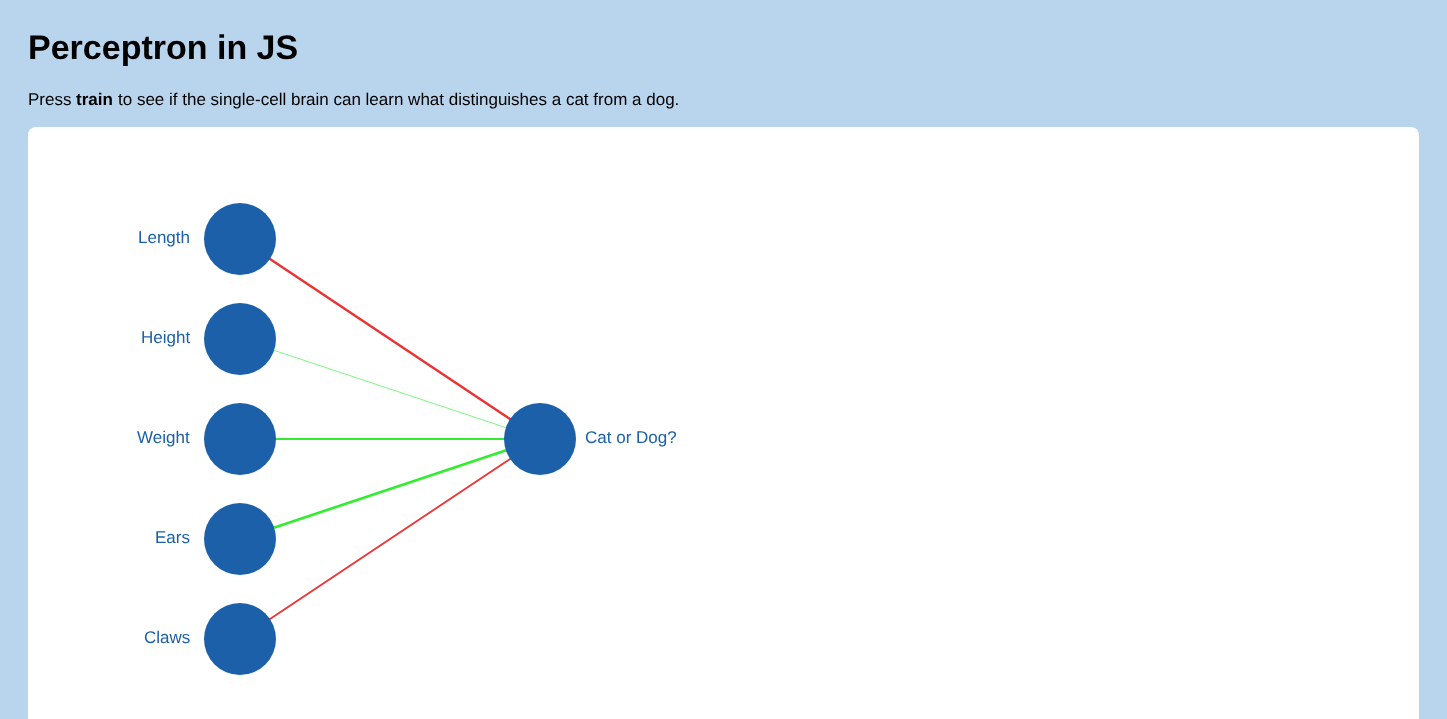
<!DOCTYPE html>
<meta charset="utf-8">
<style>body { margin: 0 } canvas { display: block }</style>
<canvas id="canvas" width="1447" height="719"></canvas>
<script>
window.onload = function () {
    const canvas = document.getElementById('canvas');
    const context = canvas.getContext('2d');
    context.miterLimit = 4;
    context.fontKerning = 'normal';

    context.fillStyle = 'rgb(185, 212, 237)';
    context.fillRect(0, 0, 1447, 719);
    context.fillStyle = 'rgb(255, 255, 255)';
    context.beginPath();
    context.roundRect(28, 127, 1391, 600, 8);
    context.fill();
    context.beginPath();
    context.moveTo(240, 239);
    context.lineTo(540, 439);
    context.strokeStyle = 'rgb(235, 51, 51)';
    context.lineWidth = 2.5;
    context.stroke();
    context.fillStyle = 'rgb(28, 96, 169)';
    context.beginPath();
    context.arc(240, 239, 36, 0, 2 * Math.PI);
    context.fill();
    context.beginPath();
    context.moveTo(240, 339);
    context.lineTo(540, 439);
    context.strokeStyle = 'rgba(0, 230, 0, 0.8)';
    context.lineWidth = 0.6;
    context.stroke();
    context.beginPath();
    context.arc(240, 339, 36, 0, 2 * Math.PI);
    context.fill();
    context.fillStyle = 'rgba(0, 230, 0, 0.8)';
    context.fillRect(275, 438, 230, 2);
    context.fillStyle = 'rgb(28, 96, 169)';
    context.beginPath();
    context.arc(240, 439, 36, 0, 2 * Math.PI);
    context.fill();
    context.beginPath();
    context.moveTo(240, 539);
    context.lineTo(540, 439);
    context.lineWidth = 2.8;
    context.stroke();
    context.beginPath();
    context.arc(240, 539, 36, 0, 2 * Math.PI);
    context.fill();
    context.beginPath();
    context.moveTo(240, 639);
    context.lineTo(540, 439);
    context.strokeStyle = 'rgba(230, 0, 0, 0.8)';
    context.lineWidth = 1.9;
    context.stroke();
    context.beginPath();
    context.arc(540, 439, 36, 0, 2 * Math.PI);
    context.fill();
    context.beginPath();
    context.arc(240, 639, 36, 0, 2 * Math.PI);
    context.fill();
    context.font = 'bold 34px Liberation Sans';
    context.fillStyle = 'rgb(0, 0, 0)';
    context.fillText('Perceptron in JS', 28, 59);
    context.font = '17px Liberation Sans';
    context.fillText('Press', 28, 105);
    context.font = 'bold 17px Liberation Sans';
    context.fillText('train', 76, 105);
    context.font = '17px Liberation Sans';
    context.fillText('to see if the single-cell brain can learn what distinguishes a cat from a dog.', 118, 105);
    context.fillStyle = 'rgb(28, 96, 169)';
    context.fillText('Length', 138, 243);
    context.fillText('Height', 141, 343);
    context.fillText('Weight', 137, 443);
    context.fillText('Cat or Dog?', 585, 443);
    context.fillText('Ears', 155, 543);
    context.fillText('Claws', 144, 643);
};
</script>
